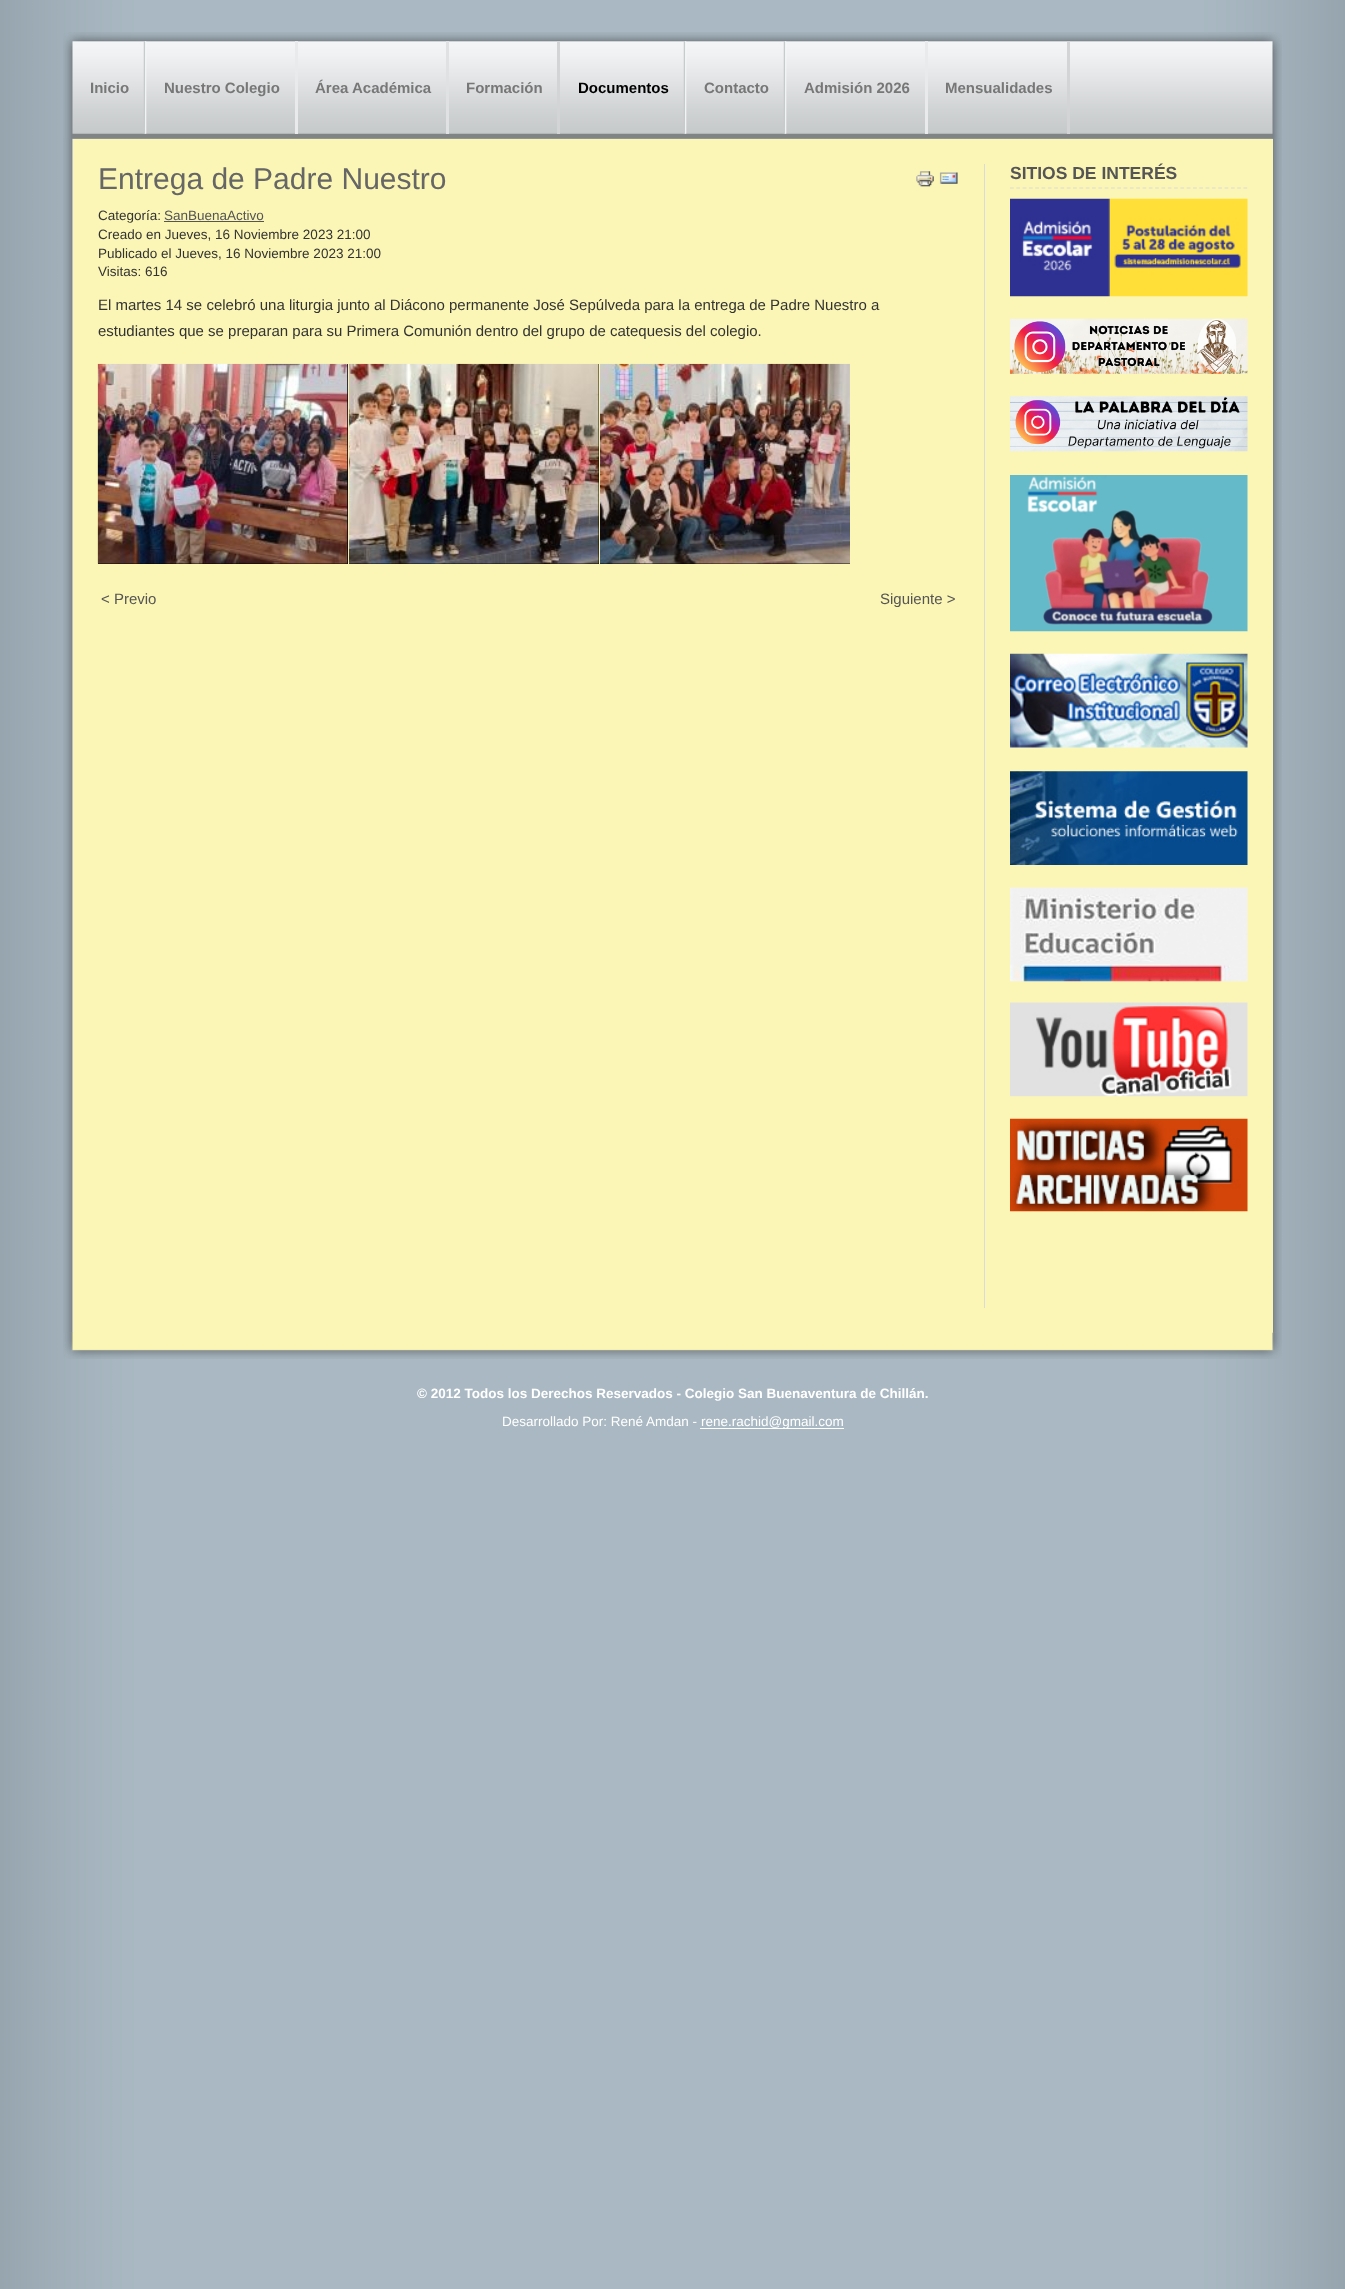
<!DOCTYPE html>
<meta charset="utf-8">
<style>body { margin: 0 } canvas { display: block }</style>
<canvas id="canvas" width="1345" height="2289"></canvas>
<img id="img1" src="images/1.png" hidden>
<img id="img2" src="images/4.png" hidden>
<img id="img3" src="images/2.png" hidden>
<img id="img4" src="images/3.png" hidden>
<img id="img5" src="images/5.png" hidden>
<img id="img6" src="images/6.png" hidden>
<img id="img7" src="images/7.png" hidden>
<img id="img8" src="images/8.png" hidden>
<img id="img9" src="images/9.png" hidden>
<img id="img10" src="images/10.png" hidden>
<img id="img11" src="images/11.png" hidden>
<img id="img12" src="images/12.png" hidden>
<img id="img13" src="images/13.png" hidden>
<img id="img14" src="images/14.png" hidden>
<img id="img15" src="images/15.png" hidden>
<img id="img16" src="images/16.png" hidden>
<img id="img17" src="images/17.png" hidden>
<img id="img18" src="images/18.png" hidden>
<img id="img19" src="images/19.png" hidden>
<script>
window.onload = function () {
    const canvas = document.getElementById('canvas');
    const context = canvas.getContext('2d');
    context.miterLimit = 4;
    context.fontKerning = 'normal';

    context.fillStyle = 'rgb(255, 255, 255)';
    context.fillRect(0, 0, 1345, 2289);
    context.drawImage(document.getElementById('img1'), 0, 0, 1345, 2289);
    context.drawImage(document.getElementById('img2'), 63, 138, 1219, 1195);
    context.drawImage(document.getElementById('img3'), 63, 32, 1219, 107);
    context.drawImage(document.getElementById('img4'), 143, 41, 4, 93);
    context.fillStyle = 'rgb(232, 234, 236)';
    context.fillRect(295, 41, 3, 93);
    context.fillStyle = 'rgb(223, 225, 226)';
    context.fillRect(446, 41, 3, 93);
    context.fillStyle = 'rgb(210, 212, 213)';
    context.fillRect(557, 41, 3, 93);
    context.drawImage(document.getElementById('img4'), 683, 41, 4, 93);
    context.drawImage(document.getElementById('img4'), 783, 41, 4, 93);
    context.fillStyle = 'rgb(232, 234, 236)';
    context.fillRect(925, 41, 3, 93);
    context.fillStyle = 'rgb(210, 212, 213)';
    context.fillRect(1067, 41, 3, 93);
    context.fillStyle = 'rgb(251, 246, 181)';
    context.fillRect(73, 139, 1200, 1194);
    context.drawImage(document.getElementById('img5'), 916, 171, 18, 16);
    context.drawImage(document.getElementById('img6'), 939, 172, 19, 12);
    context.fillStyle = 'rgb(85, 85, 85)';
    context.fillRect(164, 221, 100, 1);
    context.fillStyle = 'rgb(0, 0, 0)';
    context.fillRect(98, 364, 250, 200);
    context.drawImage(document.getElementById('img7'), 97, 363, 251, 201);
    context.fillRect(349, 364, 250, 200);
    context.drawImage(document.getElementById('img8'), 348, 363, 251, 201);
    context.fillRect(600, 563, 250, 1);
    context.drawImage(document.getElementById('img9'), 600, 363, 250, 201);
    context.fillStyle = 'rgb(218, 218, 218)';
    context.fillRect(984, 164, 1, 1144);
    context.beginPath();
    context.moveTo(1010, 188);
    context.lineTo(1247.5, 188);
    context.strokeStyle = 'rgb(218, 218, 218)';
    context.lineWidth = 1.2;
    context.setLineDash([3.75, 2.56]);
    context.stroke();
    context.drawImage(document.getElementById('img10'), 1010, 198, 238, 99);
    context.drawImage(document.getElementById('img11'), 1010, 318, 238, 56);
    context.drawImage(document.getElementById('img12'), 1010, 396, 238, 56);
    context.drawImage(document.getElementById('img13'), 1010, 475, 238, 157);
    context.drawImage(document.getElementById('img14'), 1010, 653, 238, 95);
    context.drawImage(document.getElementById('img15'), 1010, 771, 238, 94);
    context.drawImage(document.getElementById('img16'), 1010, 887, 238, 95);
    context.drawImage(document.getElementById('img17'), 1010, 1002, 238, 95);
    context.drawImage(document.getElementById('img18'), 1010, 1118, 238, 94);
    context.drawImage(document.getElementById('img19'), 63, 1332, 1219, 27);
    context.fillStyle = 'rgb(255, 255, 255)';
    context.fillRect(700, 1428, 144, 1);
    context.font = 'bold 15px Liberation Sans';
    context.fillStyle = 'rgb(119, 119, 119)';
    context.fillText('Inicio', 90, 93);
    context.fillText('Nuestro Colegio', 164, 93);
    context.fillText('Área Académica', 315, 93);
    context.fillText('Formación', 466, 93);
    context.fillStyle = 'rgb(0, 0, 0)';
    context.fillText('Documentos', 578, 93);
    context.fillStyle = 'rgb(119, 119, 119)';
    context.fillText('Contacto', 704, 93);
    context.fillText('Admisión 2026', 804, 93);
    context.fillText('Mensualidades', 945, 93);
    context.font = '30px Liberation Sans';
    context.fillStyle = 'rgb(102, 102, 102)';
    context.fillText('Entrega de Padre Nuestro', 98, 189);
    context.font = '13.5px Liberation Sans';
    context.fillStyle = 'rgb(51, 51, 51)';
    context.fillText('Categoría:', 98, 220);
    context.fillStyle = 'rgb(85, 85, 85)';
    context.fillText('SanBuenaActivo', 164, 220);
    context.fillStyle = 'rgb(51, 51, 51)';
    context.fillText('Creado en Jueves, 16 Noviembre 2023 21:00', 98, 239);
    context.fillText('Publicado el Jueves, 16 Noviembre 2023 21:00', 98, 258);
    context.fillText('Visitas: 616', 98, 276);
    context.font = '15px Liberation Sans';
    context.fillText('El martes 14 se celebró una liturgia junto al Diácono permanente José Sepúlveda para la entrega de Padre Nuestro a', 98, 310);
    context.fillText('estudiantes que se preparan para su Primera Comunión dentro del grupo de catequesis del colegio.', 98, 336);
    context.fillStyle = 'rgb(85, 85, 85)';
    context.fillText('< Previo', 101, 604);
    context.fillText('Siguiente >', 880, 604);
    context.font = 'bold 17.5px Liberation Sans';
    context.fillText('SITIOS DE INTERÉS', 1010, 179);
    context.font = 'bold 13.5px Liberation Sans';
    context.fillStyle = 'rgb(255, 255, 255)';
    context.fillText('© 2012 Todos los Derechos Reservados - Colegio San Buenaventura de Chillán.', 417, 1398);
    context.font = '13.5px Liberation Sans';
    context.fillText('Desarrollado Por: René Amdan -', 502, 1426);
    context.fillText('rene.rachid@gmail.com', 701, 1426);
};
</script>
